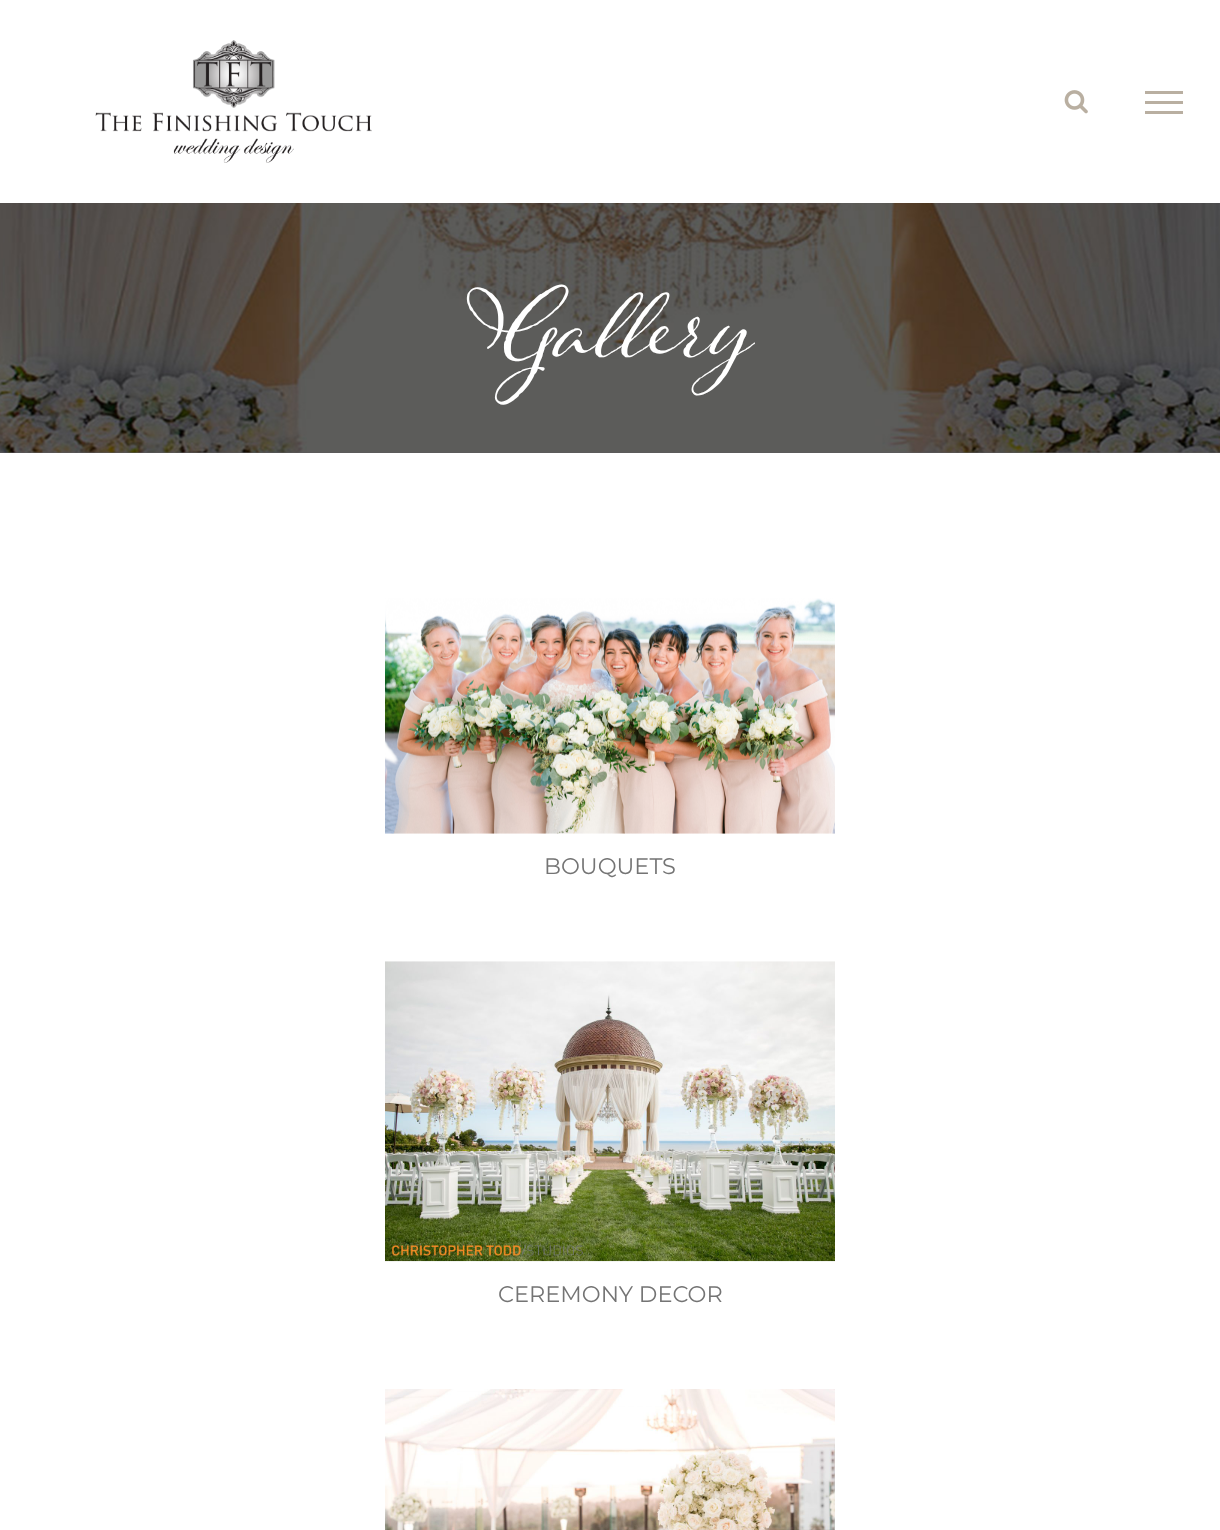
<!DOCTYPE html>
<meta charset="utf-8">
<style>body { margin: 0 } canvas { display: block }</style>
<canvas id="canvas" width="1220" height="1530"></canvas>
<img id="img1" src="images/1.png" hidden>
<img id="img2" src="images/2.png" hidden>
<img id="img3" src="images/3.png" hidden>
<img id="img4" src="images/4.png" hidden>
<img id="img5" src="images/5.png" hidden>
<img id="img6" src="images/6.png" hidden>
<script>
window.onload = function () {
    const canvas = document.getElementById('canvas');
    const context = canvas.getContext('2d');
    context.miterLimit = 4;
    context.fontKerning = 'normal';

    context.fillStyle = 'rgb(255, 255, 255)';
    context.fillRect(0, 0, 1220, 1530);
    context.drawImage(document.getElementById('img1'), 95, 40, 277, 123);
    context.drawImage(document.getElementById('img2'), 1064, 90, 24, 24);
    context.fillStyle = 'rgb(185, 175, 161)';
    context.fillRect(1145, 91, 38, 3);
    context.fillRect(1145, 101, 38, 3);
    context.fillRect(1145, 111, 38, 3);
    context.fillStyle = 'rgb(92, 91, 92)';
    context.fillRect(0, 452, 1220, 1);
    context.drawImage(document.getElementById('img3'), 0, 203, 1220, 250);
    context.drawImage(document.getElementById('img4'), 385, 598, 450, 236);
    context.drawImage(document.getElementById('img5'), 385, 961, 450, 301);
    context.drawImage(document.getElementById('img6'), 385, 1389, 450, 141);
    context.font = '127.5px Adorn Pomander';
    context.fillStyle = 'rgb(255, 255, 255)';
    context.fillText('Gallery', 467, 353);
    context.font = '100 22.5px Montserrat';
    context.fillStyle = 'rgb(116, 116, 116)';
    context.fillText('BOUQUETS', 544, 874);
    context.fillText('CEREMONY DECOR', 498, 1302);
};
</script>
